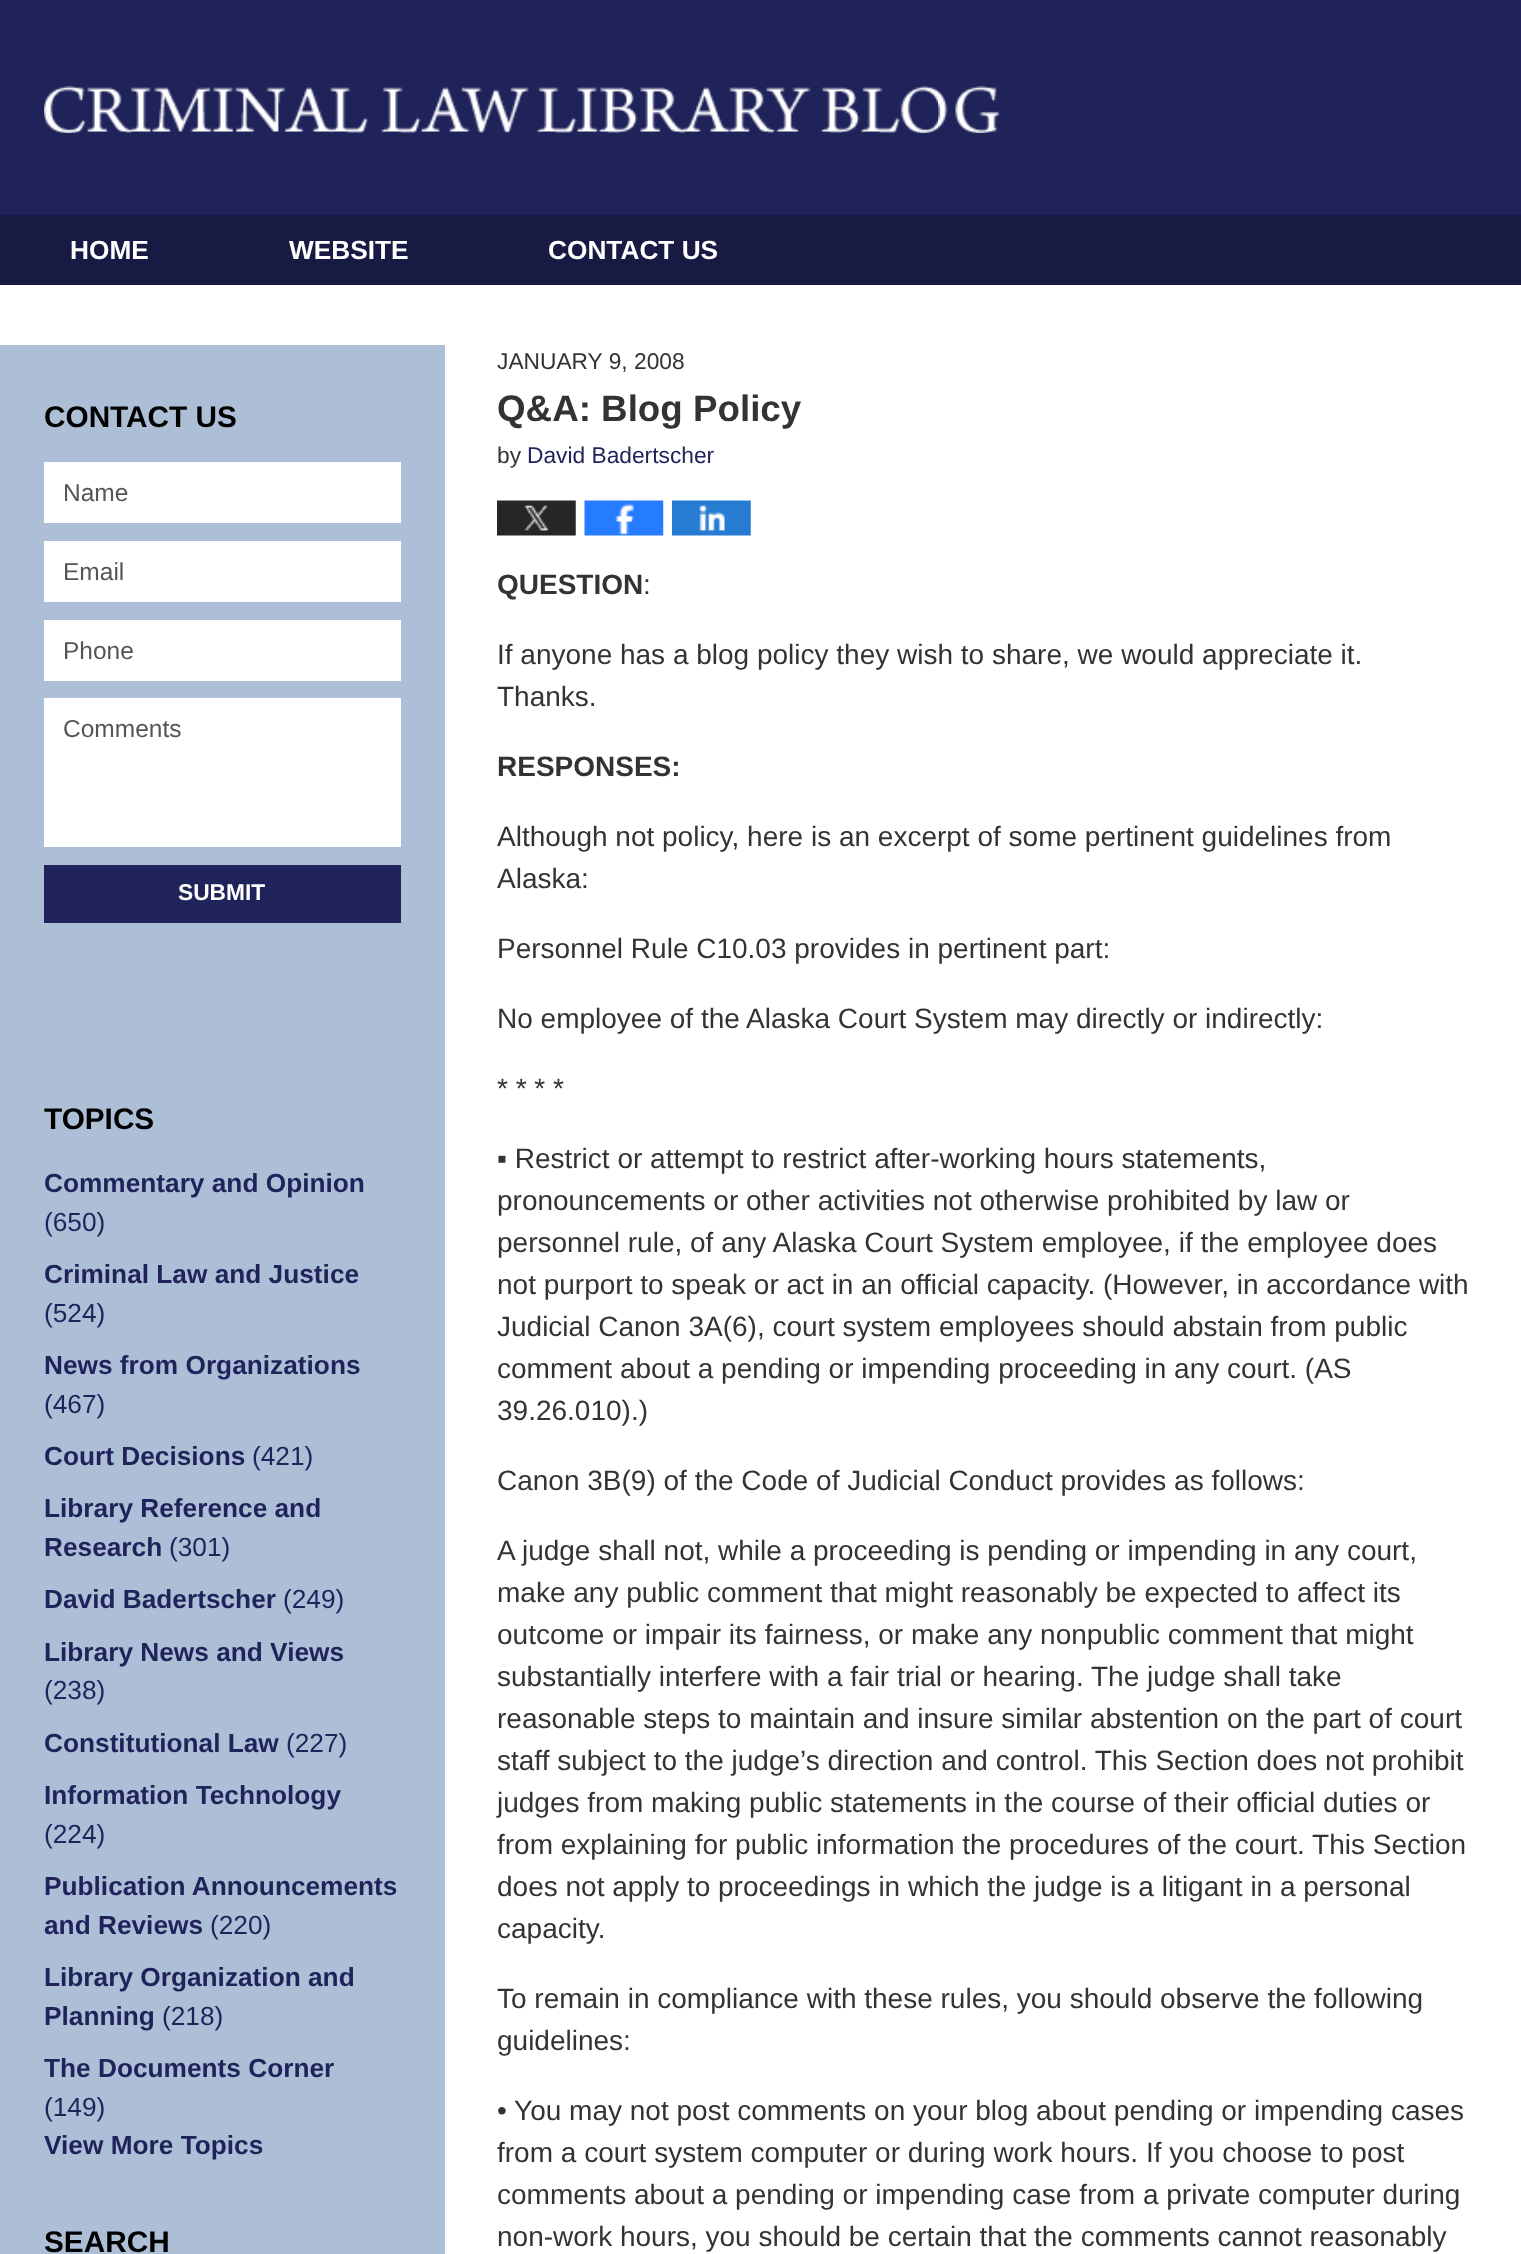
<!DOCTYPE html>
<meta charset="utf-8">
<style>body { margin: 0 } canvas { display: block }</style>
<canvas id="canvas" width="1521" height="2254"></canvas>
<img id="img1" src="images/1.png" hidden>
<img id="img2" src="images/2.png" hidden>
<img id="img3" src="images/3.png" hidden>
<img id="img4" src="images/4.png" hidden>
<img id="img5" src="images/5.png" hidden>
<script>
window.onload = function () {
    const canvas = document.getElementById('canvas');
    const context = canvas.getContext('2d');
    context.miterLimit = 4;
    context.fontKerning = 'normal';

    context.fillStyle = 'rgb(255, 255, 255)';
    context.fillRect(0, 0, 1521, 2254);
    context.drawImage(document.getElementById('img1'), 0, 0, 1521, 215);
    context.drawImage(document.getElementById('img2'), 44, 86, 955, 47);
    context.fillStyle = 'rgb(23, 26, 66)';
    context.fillRect(0, 215, 1521, 70);
    context.fillStyle = 'rgb(173, 191, 215)';
    context.fillRect(0, 345, 445, 1909);
    context.drawImage(document.getElementById('img3'), 497, 500, 79, 36);
    context.drawImage(document.getElementById('img4'), 584, 500, 80, 36);
    context.drawImage(document.getElementById('img5'), 672, 500, 79, 36);
    context.fillStyle = 'rgb(255, 255, 255)';
    context.fillRect(44, 462, 357, 61);
    context.fillRect(44, 541, 357, 61);
    context.fillRect(44, 620, 357, 61);
    context.fillRect(44, 698, 357, 149);
    context.fillStyle = 'rgb(31, 35, 90)';
    context.fillRect(44, 865, 357, 58);
    context.font = 'bold 26.25px Liberation Sans';
    context.fillStyle = 'rgb(255, 255, 255)';
    context.fillText('HOME', 70, 259);
    context.fillText('WEBSITE', 289, 259);
    context.fillText('CONTACT US', 548, 259);
    context.font = '22.75px Liberation Sans';
    context.fillStyle = 'rgb(51, 51, 51)';
    context.fillText('JANUARY 9, 2008', 497, 369);
    context.font = 'bold 36.75px Liberation Sans';
    context.fillText('Q&A: Blog Policy', 497, 421);
    context.font = '22.75px Liberation Sans';
    context.fillText('by', 497, 463);
    context.fillStyle = 'rgb(31, 35, 90)';
    context.fillText('David Badertscher', 527, 463);
    context.font = 'bold 28px Liberation Sans';
    context.fillStyle = 'rgb(51, 51, 51)';
    context.fillText('QUESTION', 497, 594);
    context.font = '28px Liberation Sans';
    context.fillText(':', 643, 594);
    context.fillText('If anyone has a blog policy they wish to share, we would appreciate it.', 497, 664);
    context.fillText('Thanks.', 497, 706);
    context.font = 'bold 28px Liberation Sans';
    context.fillText('RESPONSES:', 497, 776);
    context.font = '28px Liberation Sans';
    context.fillText('Although not policy, here is an excerpt of some pertinent guidelines from', 497, 846);
    context.fillText('Alaska:', 497, 888);
    context.fillText('Personnel Rule C10.03 provides in pertinent part:', 497, 958);
    context.fillText('No employee of the Alaska Court System may directly or indirectly:', 497, 1028);
    context.fillText('* * * *', 497, 1098);
    context.fillText('▪ Restrict or attempt to restrict after-working hours statements,', 497, 1168);
    context.fillText('pronouncements or other activities not otherwise prohibited by law or', 497, 1210);
    context.fillText('personnel rule, of any Alaska Court System employee, if the employee does', 497, 1252);
    context.fillText('not purport to speak or act in an official capacity. (However, in accordance with', 497, 1294);
    context.fillText('Judicial Canon 3A(6), court system employees should abstain from public', 497, 1336);
    context.fillText('comment about a pending or impending proceeding in any court. (AS', 497, 1378);
    context.fillText('39.26.010).)', 497, 1420);
    context.fillText('Canon 3B(9) of the Code of Judicial Conduct provides as follows:', 497, 1490);
    context.fillText('A judge shall not, while a proceeding is pending or impending in any court,', 497, 1560);
    context.fillText('make any public comment that might reasonably be expected to affect its', 497, 1602);
    context.fillText('outcome or impair its fairness, or make any nonpublic comment that might', 497, 1644);
    context.fillText('substantially interfere with a fair trial or hearing. The judge shall take', 497, 1686);
    context.fillText('reasonable steps to maintain and insure similar abstention on the part of court', 497, 1728);
    context.fillText('staff subject to the judge’s direction and control. This Section does not prohibit', 497, 1770);
    context.fillText('judges from making public statements in the course of their official duties or', 497, 1812);
    context.fillText('from explaining for public information the procedures of the court. This Section', 497, 1854);
    context.fillText('does not apply to proceedings in which the judge is a litigant in a personal', 497, 1896);
    context.fillText('capacity.', 497, 1938);
    context.fillText('To remain in compliance with these rules, you should observe the following', 497, 2008);
    context.fillText('guidelines:', 497, 2050);
    context.fillText('• You may not post comments on your blog about pending or impending cases', 497, 2120);
    context.fillText('from a court system computer or during work hours. If you choose to post', 497, 2162);
    context.fillText('comments about a pending or impending case from a private computer during', 497, 2204);
    context.fillText('non-work hours, you should be certain that the comments cannot reasonably', 497, 2246);
    context.font = 'bold 29.75px Liberation Sans';
    context.fillStyle = 'rgb(0, 0, 0)';
    context.fillText('CONTACT US', 44, 427);
    context.font = '24.5px Liberation Sans';
    context.fillStyle = 'rgb(85, 85, 85)';
    context.fillText('Name', 63, 501);
    context.fillText('Email', 63, 580);
    context.fillText('Phone', 63, 659);
    context.fillText('Comments', 63, 737);
    context.font = 'bold 22.75px Liberation Sans';
    context.fillStyle = 'rgb(255, 255, 255)';
    context.fillText('SUBMIT', 178, 900);
    context.font = 'bold 29.75px Liberation Sans';
    context.fillStyle = 'rgb(0, 0, 0)';
    context.fillText('TOPICS', 44, 1129);
    context.font = 'bold 26.25px Liberation Sans';
    context.fillStyle = 'rgb(31, 35, 90)';
    context.fillText('Commentary and Opinion', 44, 1192);
    context.font = '26.25px Liberation Sans';
    context.fillText('(650)', 44, 1231);
    context.font = 'bold 26.25px Liberation Sans';
    context.fillText('Criminal Law and Justice', 44, 1283);
    context.font = '26.25px Liberation Sans';
    context.fillText('(524)', 44, 1322);
    context.font = 'bold 26.25px Liberation Sans';
    context.fillText('News from Organizations', 44, 1374);
    context.font = '26.25px Liberation Sans';
    context.fillText('(467)', 44, 1413);
    context.font = 'bold 26.25px Liberation Sans';
    context.fillText('Court Decisions', 44, 1465);
    context.font = '26.25px Liberation Sans';
    context.fillText('(421)', 252, 1465);
    context.font = 'bold 26.25px Liberation Sans';
    context.fillText('Library Reference and', 44, 1517);
    context.fillText('Research', 44, 1556);
    context.font = '26.25px Liberation Sans';
    context.fillText('(301)', 169, 1556);
    context.font = 'bold 26.25px Liberation Sans';
    context.fillText('David Badertscher', 44, 1608);
    context.font = '26.25px Liberation Sans';
    context.fillText('(249)', 283, 1608);
    context.font = 'bold 26.25px Liberation Sans';
    context.fillText('Library News and Views', 44, 1661);
    context.font = '26.25px Liberation Sans';
    context.fillText('(238)', 44, 1699);
    context.font = 'bold 26.25px Liberation Sans';
    context.fillText('Constitutional Law', 44, 1752);
    context.font = '26.25px Liberation Sans';
    context.fillText('(227)', 286, 1752);
    context.font = 'bold 26.25px Liberation Sans';
    context.fillText('Information Technology', 44, 1804);
    context.font = '26.25px Liberation Sans';
    context.fillText('(224)', 44, 1843);
    context.font = 'bold 26.25px Liberation Sans';
    context.fillText('Publication Announcements', 44, 1895);
    context.fillText('and Reviews', 44, 1934);
    context.font = '26.25px Liberation Sans';
    context.fillText('(220)', 210, 1934);
    context.font = 'bold 26.25px Liberation Sans';
    context.fillText('Library Organization and', 44, 1986);
    context.fillText('Planning', 44, 2025);
    context.font = '26.25px Liberation Sans';
    context.fillText('(218)', 162, 2025);
    context.font = 'bold 26.25px Liberation Sans';
    context.fillText('The Documents Corner', 44, 2077);
    context.font = '26.25px Liberation Sans';
    context.fillText('(149)', 44, 2116);
    context.font = 'bold 26.25px Liberation Sans';
    context.fillText('View More Topics', 44, 2154);
    context.font = 'bold 29.75px Liberation Sans';
    context.fillStyle = 'rgb(0, 0, 0)';
    context.fillText('SEARCH', 44, 2252);
};
</script>
